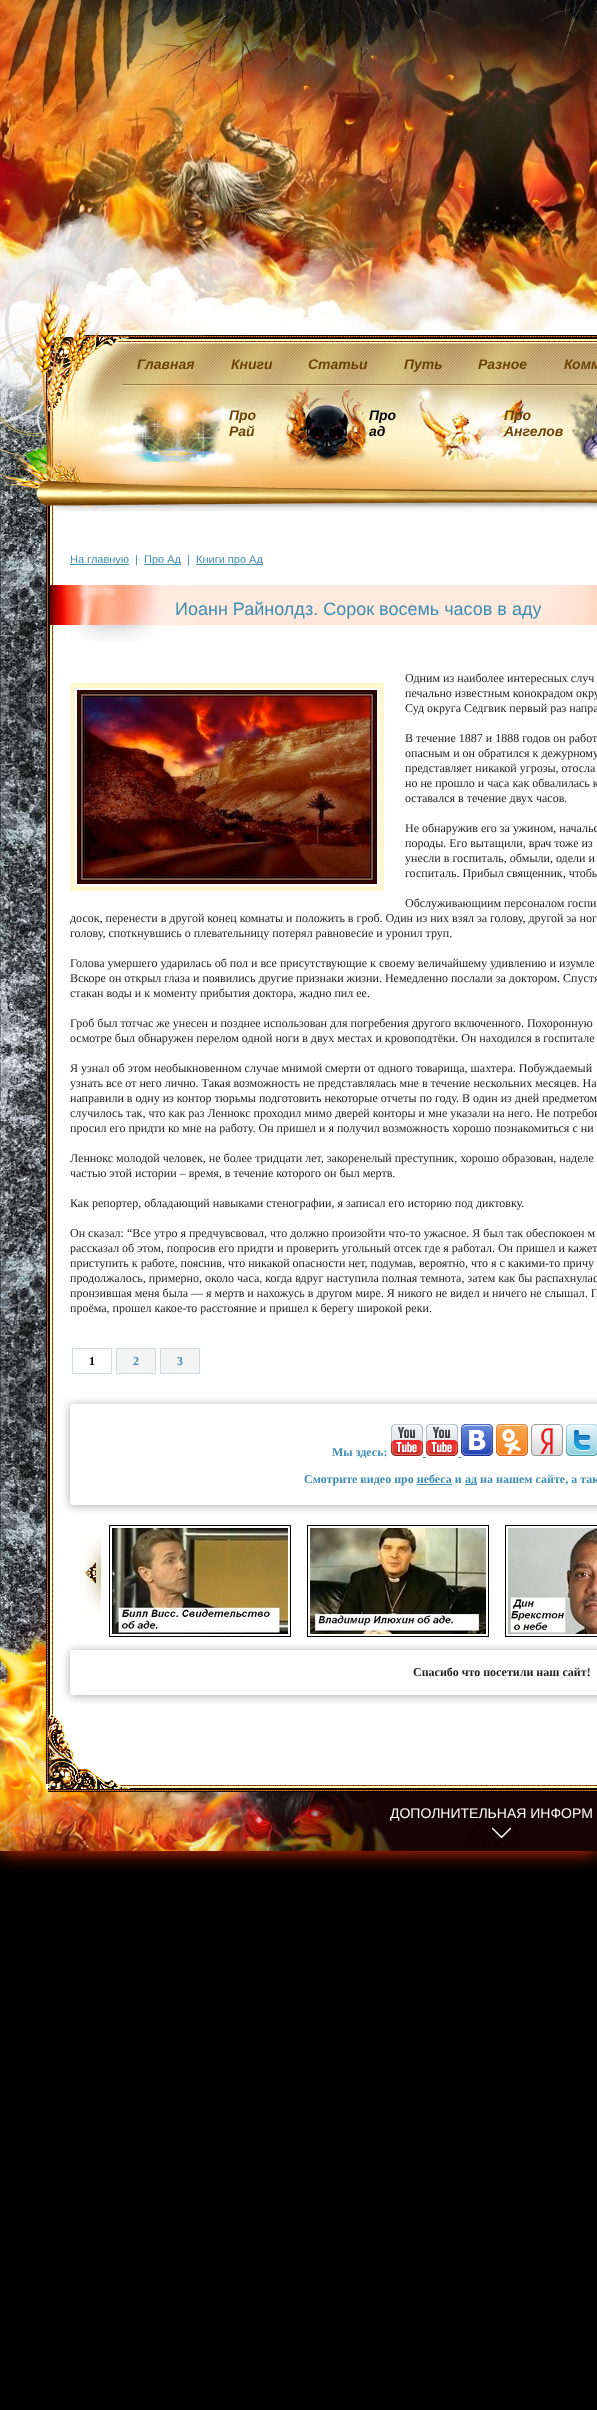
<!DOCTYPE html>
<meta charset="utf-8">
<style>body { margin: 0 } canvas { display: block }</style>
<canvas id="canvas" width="597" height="2410"></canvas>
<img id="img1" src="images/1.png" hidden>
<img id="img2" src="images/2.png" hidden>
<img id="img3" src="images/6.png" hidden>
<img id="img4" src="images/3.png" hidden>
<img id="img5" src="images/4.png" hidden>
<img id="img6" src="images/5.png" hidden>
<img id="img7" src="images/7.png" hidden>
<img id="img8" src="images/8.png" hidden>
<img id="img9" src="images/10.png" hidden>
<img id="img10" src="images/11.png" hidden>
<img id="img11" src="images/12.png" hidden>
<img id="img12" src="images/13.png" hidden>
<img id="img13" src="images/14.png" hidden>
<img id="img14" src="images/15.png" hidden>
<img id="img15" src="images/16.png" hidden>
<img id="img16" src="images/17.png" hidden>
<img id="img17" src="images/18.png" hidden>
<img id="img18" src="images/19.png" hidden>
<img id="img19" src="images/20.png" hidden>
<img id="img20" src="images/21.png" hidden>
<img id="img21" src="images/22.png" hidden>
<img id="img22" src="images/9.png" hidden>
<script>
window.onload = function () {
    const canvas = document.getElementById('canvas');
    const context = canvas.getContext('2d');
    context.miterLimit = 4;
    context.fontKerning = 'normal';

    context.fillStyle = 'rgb(0, 0, 0)';
    context.fillRect(0, 0, 597, 2410);
    context.fillStyle = 'rgb(255, 51, 0)';
    context.filter = 'blur(10px)';
    context.beginPath();
    context.rect(0, 0, 597, 1851);
    context.fill();
    context.filter = 'none';
    context.drawImage(document.getElementById('img1'), 0, 330, 47, 1459);
    context.drawImage(document.getElementById('img2'), 0, 0, 597, 328);
    context.drawImage(document.getElementById('img3'), 45, 502, 552, 882);
    context.drawImage(document.getElementById('img4'), 0, 330, 597, 181);
    context.drawImage(document.getElementById('img5'), 0, 328, 597, 131);
    context.drawImage(document.getElementById('img6'), 73, 343, 524, 143);
    context.fillStyle = 'rgb(62, 141, 178)';
    context.fillRect(70, 564, 59, 1);
    context.fillRect(144, 564, 37, 1);
    context.fillRect(196, 564, 67, 1);
    context.drawImage(document.getElementById('img7'), 50, 585, 145, 40);
    context.drawImage(document.getElementById('img8'), 195, 585, 346, 40);
    context.drawImage(document.getElementById('img9'), 69, 625, 85, 17);
    context.strokeStyle = 'rgb(255, 247, 208)';
    context.lineWidth = 5;
    context.strokeRect(72.5, 685.5, 309, 203);
    context.drawImage(document.getElementById('img10'), 77, 690, 300, 194);
    context.strokeStyle = 'rgb(208, 218, 223)';
    context.lineWidth = 1;
    context.strokeRect(72.5, 1348.5, 39, 25);
    context.fillStyle = 'rgb(244, 244, 244)';
    context.beginPath();
    context.rect(116.5, 1348.5, 39, 25);
    context.fill();
    context.stroke();
    context.beginPath();
    context.rect(160.5, 1348.5, 39, 25);
    context.fill();
    context.stroke();
    context.drawImage(document.getElementById('img11'), 45, 1384, 552, 269);
    context.drawImage(document.getElementById('img12'), 0, 1582, 597, 269);
    context.fillStyle = 'rgb(173, 167, 167)';
    context.filter = 'blur(5px)';
    context.beginPath();
    context.roundRect(70, 1405, 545, 101, 3);
    context.fill();
    context.filter = 'none';
    context.fillStyle = 'rgb(255, 255, 255)';
    context.beginPath();
    context.roundRect(70, 1404, 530, 101, 3);
    context.fill();
    context.fillStyle = 'rgb(62, 141, 178)';
    context.fillRect(423, 1457, 3, 1);
    context.fillRect(458, 1457, 3, 1);
    context.drawImage(document.getElementById('img13'), 391, 1424, 32, 32);
    context.drawImage(document.getElementById('img13'), 426, 1424, 32, 32);
    context.drawImage(document.getElementById('img14'), 461, 1424, 32, 32);
    context.drawImage(document.getElementById('img15'), 496, 1424, 32, 32);
    context.drawImage(document.getElementById('img16'), 531, 1424, 32, 32);
    context.drawImage(document.getElementById('img17'), 566, 1424, 31, 32);
    context.fillRect(417, 1484, 35, 1);
    context.fillRect(465, 1484, 12, 1);
    context.drawImage(document.getElementById('img18'), 80, 1535, 21, 80);
    context.fillStyle = 'rgb(173, 167, 167)';
    context.filter = 'blur(5px)';
    context.beginPath();
    context.roundRect(70, 1651, 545, 45, 3);
    context.fill();
    context.filter = 'none';
    context.strokeStyle = 'rgb(0, 0, 0)';
    context.strokeRect(109.5, 1525.5, 181, 111);
    context.drawImage(document.getElementById('img19'), 112, 1528, 176, 106);
    context.strokeRect(307.5, 1525.5, 181, 111);
    context.drawImage(document.getElementById('img20'), 310, 1528, 176, 106);
    context.strokeRect(505.5, 1525.5, 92, 111);
    context.drawImage(document.getElementById('img21'), 508, 1528, 89, 106);
    context.fillStyle = 'rgb(255, 255, 255)';
    context.beginPath();
    context.roundRect(70, 1650, 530, 45, 3);
    context.fill();
    context.font = 'italic bold 14px Liberation Sans';
    context.fillStyle = 'rgb(110, 66, 6)';
    context.fillText('Главная', 137, 369);
    context.fillText('Книги', 231, 369);
    context.fillText('Статьи', 308, 369);
    context.fillText('Путь', 404, 369);
    context.fillText('Разное', 478, 369);
    context.fillText('Комм', 564, 369);
    context.fillText('Про', 229, 420);
    context.fillText('Рай', 229, 436);
    context.fillStyle = 'rgb(4, 5, 7)';
    context.fillText('Про', 369, 420);
    context.fillText('ад', 369, 436);
    context.fillStyle = 'rgb(110, 66, 6)';
    context.fillText('Про', 504, 420);
    context.fillText('Ангелов', 504, 436);
    context.font = '11px Liberation Sans';
    context.fillStyle = 'rgb(62, 141, 178)';
    context.fillText('На главную', 70, 563);
    context.fillText('|', 135, 563);
    context.fillText('Про Ад', 144, 563);
    context.fillText('|', 187, 563);
    context.fillText('Книги про Ад', 196, 563);
    context.font = '18px Liberation Sans';
    context.fillText('Иоанн Райнолдз. Сорок восемь часов в аду', 175, 615);
    context.drawImage(document.getElementById('img22'), 541, 585, 56, 40);
    context.font = '12px Liberation Serif';
    context.fillStyle = 'rgb(31, 30, 30)';
    context.fillText('Одним из наиболее интересных случ', 405, 682);
    context.fillText('печально известным конокрадом окру', 405, 697);
    context.fillText('Суд округа Седгвик первый раз напра', 405, 712);
    context.fillText('В течение 1887 и 1888 годов он работ', 405, 742);
    context.fillText('опасным и он обратился к дежурному', 405, 757);
    context.fillText('представляет никакой угрозы, отосла', 405, 772);
    context.fillText('но не прошло и часа как обвалилась к', 405, 787);
    context.fillText('оставался в течение двух часов.', 405, 802);
    context.fillText('Не обнаружив его за ужином, начальс', 405, 832);
    context.fillText('породы. Его вытащили, врач тоже из', 405, 847);
    context.fillText('унесли в госпиталь, обмыли, одели и', 405, 862);
    context.fillText('госпиталь. Прибыл священник, чтобы', 405, 877);
    context.fillText('Обслуживающиим персоналом госпи', 405, 907);
    context.fillText('досок, перенести в другой конец комнаты и положить в гроб. Один из них взял за голову, другой за ног', 70, 922);
    context.fillText('голову, споткнувшись о плевательницу потерял равновесие и уронил труп.', 70, 937);
    context.fillText('Голова умершего ударилась об пол и все присутствующие к своему величайшему удивлению и изумле', 70, 967);
    context.fillText('Вскоре он открыл глаза и появились другие признаки жизни. Немедленно послали за доктором. Спустя', 70, 982);
    context.fillText('стакан воды и к моменту прибытия доктора, жадно пил ее.', 70, 997);
    context.fillText('Гроб был тотчас же унесен и позднее использован для погребения другого включенного. Похоронную', 70, 1027);
    context.fillText('осмотре был обнаружен перелом одной ноги в двух местах и кровоподтёки. Он находился в госпитале', 70, 1042);
    context.fillText('Я узнал об этом необыкновенном случае мнимой смерти от одного товарища, шахтера. Побуждаемый', 70, 1072);
    context.fillText('узнать все от него лично. Такая возможность не представлялась мне в течение нескольних месяцев. На', 70, 1087);
    context.fillText('направили в одну из контор тюрьмы подготовить некоторые отчеты по году. В один из дней предметом', 70, 1102);
    context.fillText('случилось так, что как раз Леннокс проходил мимо дверей конторы и мне указали на него. Не потребов', 70, 1117);
    context.fillText('просил его придти ко мне на работу. Он пришел и я получил возможность хорошо познакомиться с ни', 70, 1132);
    context.fillText('Леннокс молодой человек, не более тридцати лет, закоренелый преступник, хорошо образован, наделе', 70, 1162);
    context.fillText('частью этой истории – время, в течение которого он был мертв.', 70, 1177);
    context.fillText('Как репортер, обладающий навыками стенографии, я записал его историю под диктовку.', 70, 1207);
    context.fillText('Он сказал: “Все утро я предчувсвовал, что должно произойти что-то ужасное. Я был так обеспокоен м', 70, 1237);
    context.fillText('рассказал об этом, попросив его придти и проверить угольный отсек где я работал. Он пришел и кажет', 70, 1252);
    context.fillText('приступить к работе, пояснив, что никакой опасности нет, подумав, вероятно, что я с какими-то причу', 70, 1267);
    context.fillText('продолжалось, примерно, около часа, когда вдруг наступила полная темнота, затем как бы распахнулас', 70, 1282);
    context.fillText('пронзившая меня была — я мертв и нахожусь в другом мире. Я никого не видел и ничего не слышал. П', 70, 1297);
    context.fillText('проёма, прошел какое-то расстояние и пришел к берегу широкой реки.', 70, 1312);
    context.font = 'bold 12px Liberation Serif';
    context.fillStyle = 'rgb(0, 0, 0)';
    context.fillText('1', 89, 1365);
    context.fillStyle = 'rgb(62, 141, 178)';
    context.fillText('2', 133, 1365);
    context.fillText('3', 177, 1365);
    context.fillText('Мы здесь:', 332, 1456);
    context.fillText('Смотрите видео про небеса и', 304, 1483);
    context.fillText('ад на нашем сайте, а так', 465, 1483);
    context.fillStyle = 'rgb(31, 30, 30)';
    context.fillText('Спасибо что посетили наш сайт!', 413, 1676);
    context.font = '14px Liberation Sans';
    context.fillStyle = 'rgb(255, 255, 255)';
    context.fillText('ДОПОЛНИТЕЛЬНАЯ ИНФОРМ', 390, 1818);
};
</script>
